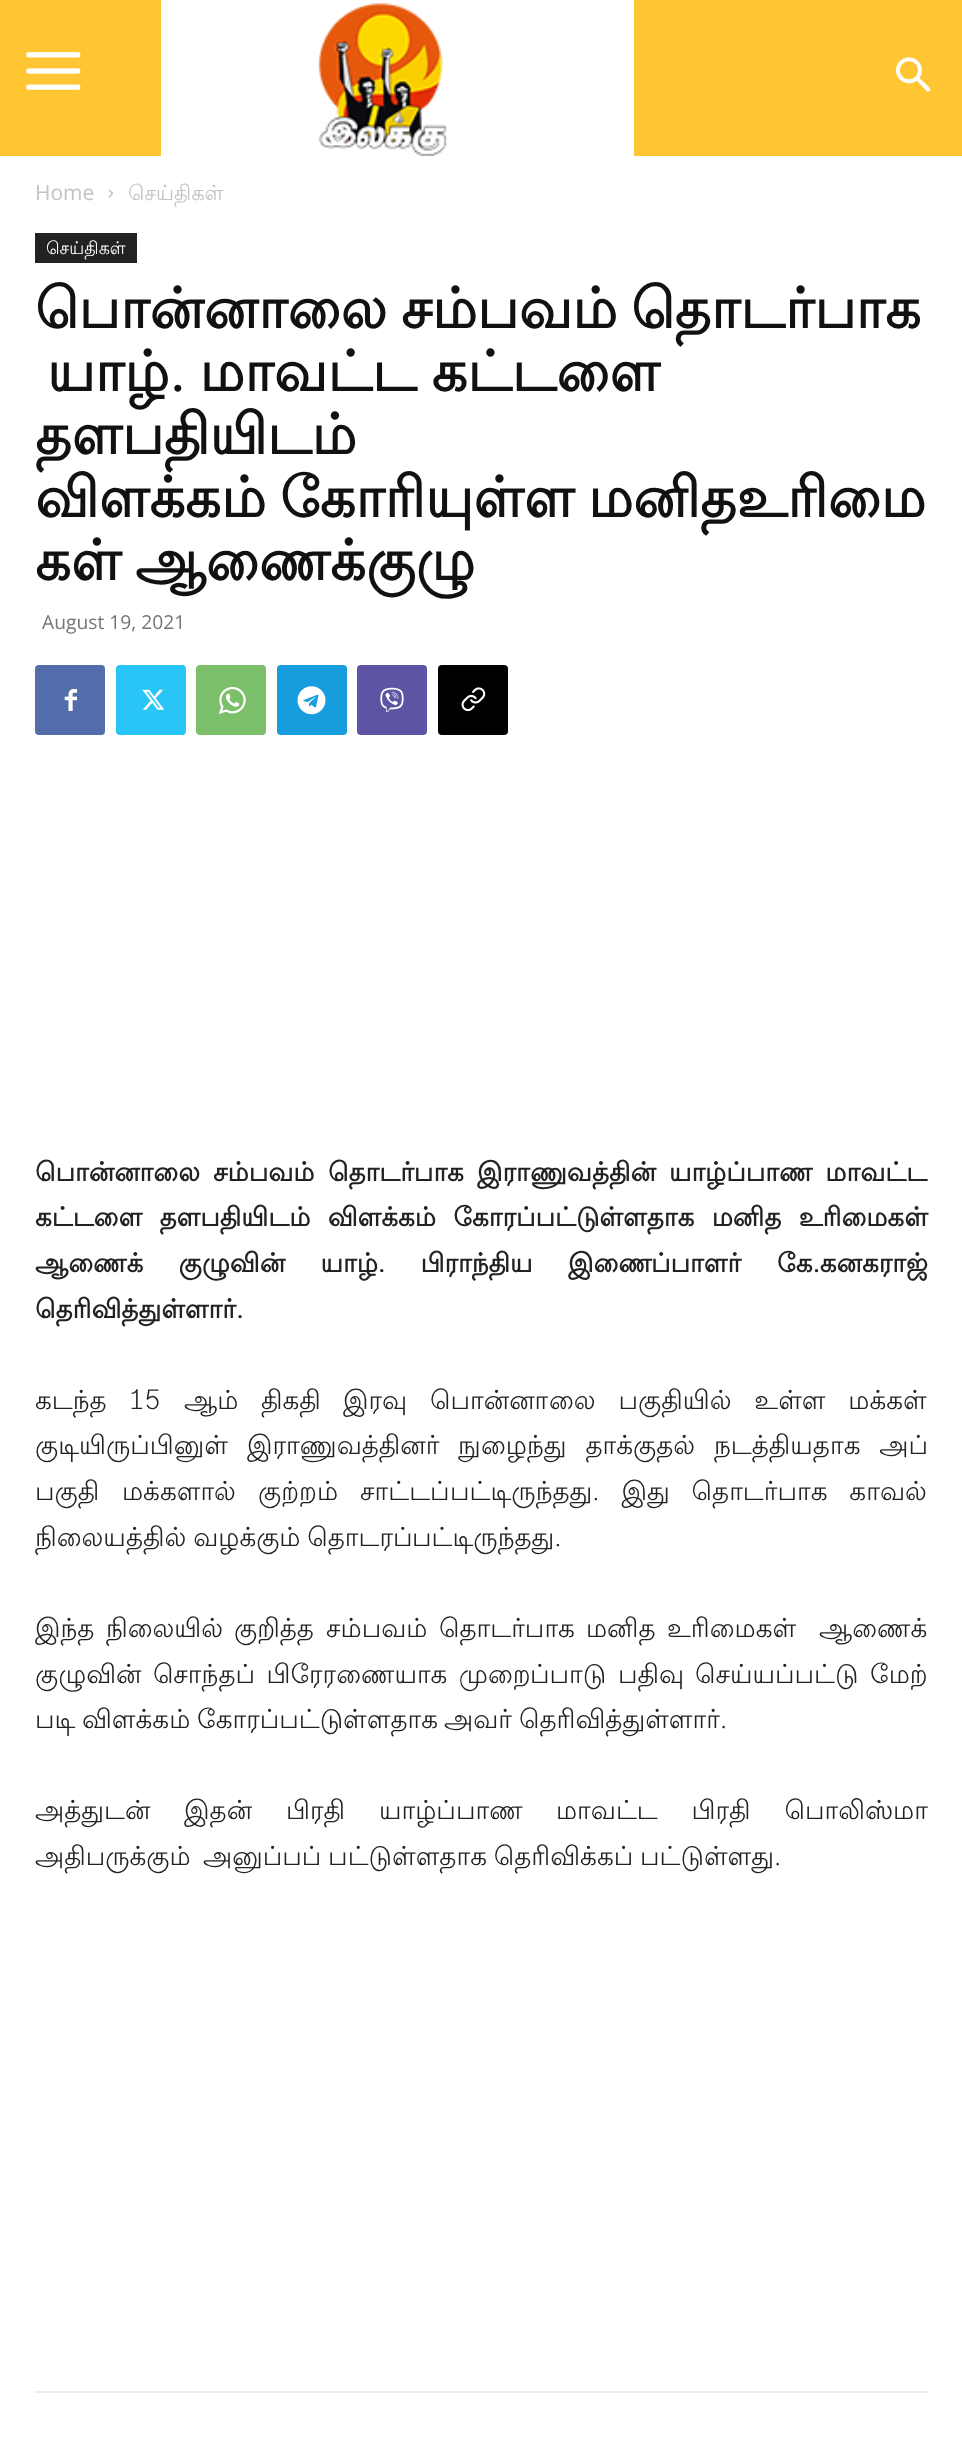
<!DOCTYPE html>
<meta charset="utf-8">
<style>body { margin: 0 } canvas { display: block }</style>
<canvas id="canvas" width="962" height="2444"></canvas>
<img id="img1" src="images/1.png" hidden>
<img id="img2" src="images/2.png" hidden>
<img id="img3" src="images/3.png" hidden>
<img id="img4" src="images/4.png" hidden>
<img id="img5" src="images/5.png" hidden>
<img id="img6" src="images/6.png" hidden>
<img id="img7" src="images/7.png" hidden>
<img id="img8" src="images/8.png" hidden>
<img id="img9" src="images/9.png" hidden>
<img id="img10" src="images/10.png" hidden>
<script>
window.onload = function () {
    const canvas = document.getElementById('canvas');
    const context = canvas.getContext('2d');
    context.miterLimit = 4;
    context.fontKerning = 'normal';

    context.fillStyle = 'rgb(255, 255, 255)';
    context.fillRect(0, 0, 962, 2444);
    context.fillStyle = 'rgb(255, 197, 51)';
    context.fillRect(0, 0, 962, 156);
    context.drawImage(document.getElementById('img1'), 26, 52, 55, 38);
    context.fillStyle = 'rgb(255, 255, 255)';
    context.fillRect(161, 0, 473, 156);
    context.drawImage(document.getElementById('img2'), 318, 3, 129, 153);
    context.drawImage(document.getElementById('img3'), 896, 57, 35, 35);
    context.drawImage(document.getElementById('img4'), 108, 189, 6, 9);
    context.fillStyle = 'rgb(34, 34, 34)';
    context.fillRect(35, 233, 102, 30);
    context.fillStyle = 'rgb(81, 110, 171)';
    context.beginPath();
    context.roundRect(35, 665, 70, 70, 4);
    context.fill();
    context.drawImage(document.getElementById('img5'), 64, 689, 13, 22);
    context.fillStyle = 'rgb(41, 197, 246)';
    context.beginPath();
    context.roundRect(116, 665, 70, 70, 4);
    context.fill();
    context.drawImage(document.getElementById('img6'), 142, 689, 23, 21);
    context.fillStyle = 'rgb(123, 191, 106)';
    context.beginPath();
    context.roundRect(196, 665, 70, 70, 4);
    context.fill();
    context.drawImage(document.getElementById('img7'), 218, 686, 28, 28);
    context.fillStyle = 'rgb(23, 156, 222)';
    context.beginPath();
    context.roundRect(277, 665, 70, 70, 4);
    context.fill();
    context.drawImage(document.getElementById('img8'), 297, 686, 29, 29);
    context.fillStyle = 'rgb(93, 84, 164)';
    context.beginPath();
    context.roundRect(357, 665, 70, 70, 4);
    context.fill();
    context.drawImage(document.getElementById('img9'), 380, 687, 24, 26);
    context.fillStyle = 'rgb(0, 0, 0)';
    context.beginPath();
    context.roundRect(438, 665, 70, 70, 4);
    context.fill();
    context.drawImage(document.getElementById('img10'), 461, 687, 25, 25);
    context.fillStyle = 'rgb(237, 237, 237)';
    context.fillRect(35, 2391, 893, 2);
    context.font = '21px Open Sans';
    context.fillStyle = 'rgb(195, 195, 195)';
    context.fillText('Home', 35, 200);
    context.font = '21px Lohit Tamil';
    context.fillText('செய்திகள்', 128, 200);
    context.font = '17.5px Lohit Tamil';
    context.fillStyle = 'rgb(255, 255, 255)';
    context.fillText('செய்திகள்', 46, 254);
    context.font = 'bold 56px Lohit Tamil';
    context.fillStyle = 'rgb(17, 17, 17)';
    context.fillText('பொன்னாலை', 35, 328);
    context.fillText('சம்பவம்', 401, 328);
    context.fillText('தொடர்பாக', 631, 328);
    context.wordSpacing = '-2px';
    context.fillText('யாழ். மாவட்ட கட்டளை', 47, 391);
    context.wordSpacing = '0px';
    context.fillText('தளபதியிடம்', 35, 454);
    context.fillText('விளக்கம்', 35, 517);
    context.fillText('கோரியுள்ள', 280, 517);
    context.fillText('மனிதஉரிமை', 588, 517);
    context.fillText('கள்', 35, 580);
    context.fillText('ஆணைக்குழு', 135, 580);
    context.font = '19.25px Open Sans';
    context.fillStyle = 'rgb(118, 118, 118)';
    context.fillText('August 19, 2021', 42, 629);
    context.font = 'bold 26.25px Lohit Tamil';
    context.fillStyle = 'rgb(34, 34, 34)';
    context.fillText('பொன்னாலை', 35, 1181);
    context.fillText('சம்பவம்', 213, 1181);
    context.fillText('தொடர்பாக', 328, 1181);
    context.fillText('இரா', 477, 1181);
    context.wordSpacing = '5px';
    context.fillText('ணுவத்தின் யாழ்ப்பாண மாவட்ட', 530, 1181);
    context.wordSpacing = '9.5px';
    context.fillText('கட்டளை தளபதியிடம் விளக்கம் கோரப்பட்டுள்ளதாக மனித உரிமைகள்', 35, 1226);
    context.wordSpacing = '27.5px';
    context.fillText('ஆணைக் குழுவின் யாழ். பிராந்திய இணை', 35, 1272);
    context.wordSpacing = '28px';
    context.fillText('ப்பாளர் கே.கனகராஜ்', 651, 1272);
    context.wordSpacing = '0px';
    context.fillText('தெரிவித்துள்ளார்.', 35, 1318);
    context.font = '26.25px Lohit Tamil';
    context.fillText('கடந்த', 35, 1409);
    context.fillText('15', 129, 1409);
    context.fillText('ஆம்', 184, 1409);
    context.fillText('திகதி', 261, 1409);
    context.fillText('இரவு', 343, 1409);
    context.fillText('பொன்னா', 430, 1409);
    context.wordSpacing = '15px';
    context.fillText('லை பகுதியில் உள்ள மக்கள்', 549, 1409);
    context.wordSpacing = '0px';
    context.fillText('குடியிருப்பினுள்', 35, 1454);
    context.fillText('இராணுவத்தினர்', 247, 1454);
    context.fillText('நு', 458, 1454);
    context.wordSpacing = '11px';
    context.fillText('ழைந்து தாக்குதல் நடத்தியதாக அப்', 481, 1454);
    context.wordSpacing = '0px';
    context.fillText('பகுதி', 35, 1500);
    context.fillText('மக்களால்', 122, 1500);
    context.fillText('குற்றம்', 258, 1500);
    context.fillText('சாட்டப்', 360, 1500);
    context.wordSpacing = '14px';
    context.fillText('பட்டிருந்தது. இது தொடர்பாக காவல்', 450, 1500);
    context.wordSpacing = '-1px';
    context.fillText('நிலையத்தில் வழக்கும் தொடரப்', 35, 1546);
    context.wordSpacing = '0px';
    context.fillText('பட்டிருந்தது.', 412, 1546);
    context.fillText('இந்த', 35, 1637);
    context.fillText('நிலையில்', 106, 1637);
    context.fillText('குறித்த', 234, 1637);
    context.fillText('சம்பவம்', 326, 1637);
    context.fillText('தொடர்பாக', 439, 1637);
    context.fillText('மனித', 586, 1637);
    context.fillText('உரிமைகள்', 667, 1637);
    context.fillText('ஆணைக்', 819, 1637);
    context.wordSpacing = '3.5px';
    context.fillText('குழுவின் சொந்தப் பிரேரணையாக முறை', 35, 1683);
    context.wordSpacing = '0px';
    context.fillText('ப்பாடு', 530, 1683);
    context.fillText('பதிவு', 618, 1683);
    context.fillText('செய்யப்பட்டு', 695, 1683);
    context.fillText('மேற்', 870, 1683);
    context.fillText('படி', 35, 1728);
    context.fillText('விளக்கம்', 82, 1728);
    context.fillText('கோரப்பட்டுள்ளதாக', 197, 1728);
    context.fillText('அவர்', 444, 1728);
    context.fillText('தெரிவித்துள்ளார்.', 519, 1728);
    context.fillText('அத்துடன்', 35, 1819);
    context.fillText('இதன்', 184, 1819);
    context.fillText('பிரதி', 286, 1819);
    context.fillText('யாழ்ப்பாண', 379, 1819);
    context.wordSpacing = '26px';
    context.fillText('மாவட்ட பிரதி பொலிஸ்மா', 556, 1819);
    context.wordSpacing = '0px';
    context.fillText('அதிபருக்கும்', 35, 1865);
    context.wordSpacing = '-1px';
    context.fillText('அனுப்பப் பட்டுள்ளதாக தெரிவிக்கப் பட்டுள்ளது.', 203, 1865);
};
</script>
